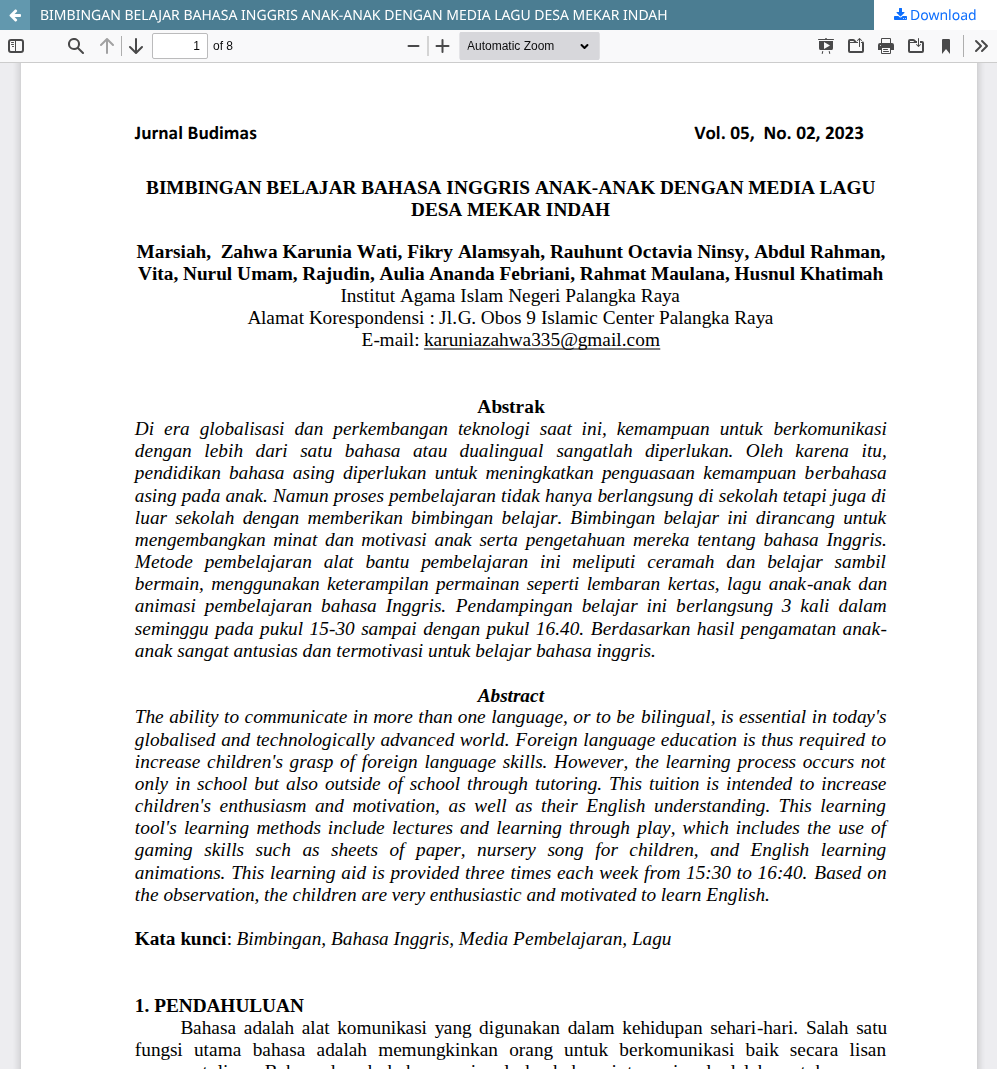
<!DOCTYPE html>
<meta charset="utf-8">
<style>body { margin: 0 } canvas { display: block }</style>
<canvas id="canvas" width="997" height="1069"></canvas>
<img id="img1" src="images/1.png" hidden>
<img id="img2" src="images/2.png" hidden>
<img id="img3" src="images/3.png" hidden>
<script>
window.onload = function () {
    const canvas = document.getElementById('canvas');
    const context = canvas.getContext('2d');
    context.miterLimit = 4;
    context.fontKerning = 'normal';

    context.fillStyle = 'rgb(255, 255, 255)';
    context.fillRect(0, 0, 997, 1069);
    context.fillStyle = 'rgb(75, 125, 146)';
    context.fillRect(30, 0, 844, 30);
    context.fillStyle = 'rgb(98, 152, 174)';
    context.fillRect(0, 0, 30, 30);
    context.drawImage(document.getElementById('img1'), 9, 9, 12, 13);
    context.drawImage(document.getElementById('img2'), 894, 8, 13, 12);
    context.drawImage(document.getElementById('img3'), 0, 30, 997, 1039);
    context.font = '14px Noto Sans';
    context.fillStyle = 'rgb(255, 255, 255)';
    context.fillText('BIMBINGAN BELAJAR BAHASA INGGRIS ANAK-ANAK DENGAN MEDIA LAGU DESA MEKAR INDAH', 40, 20);
    context.fillStyle = 'rgb(13, 110, 253)';
    context.fillText('Download', 910, 20);
};
</script>
